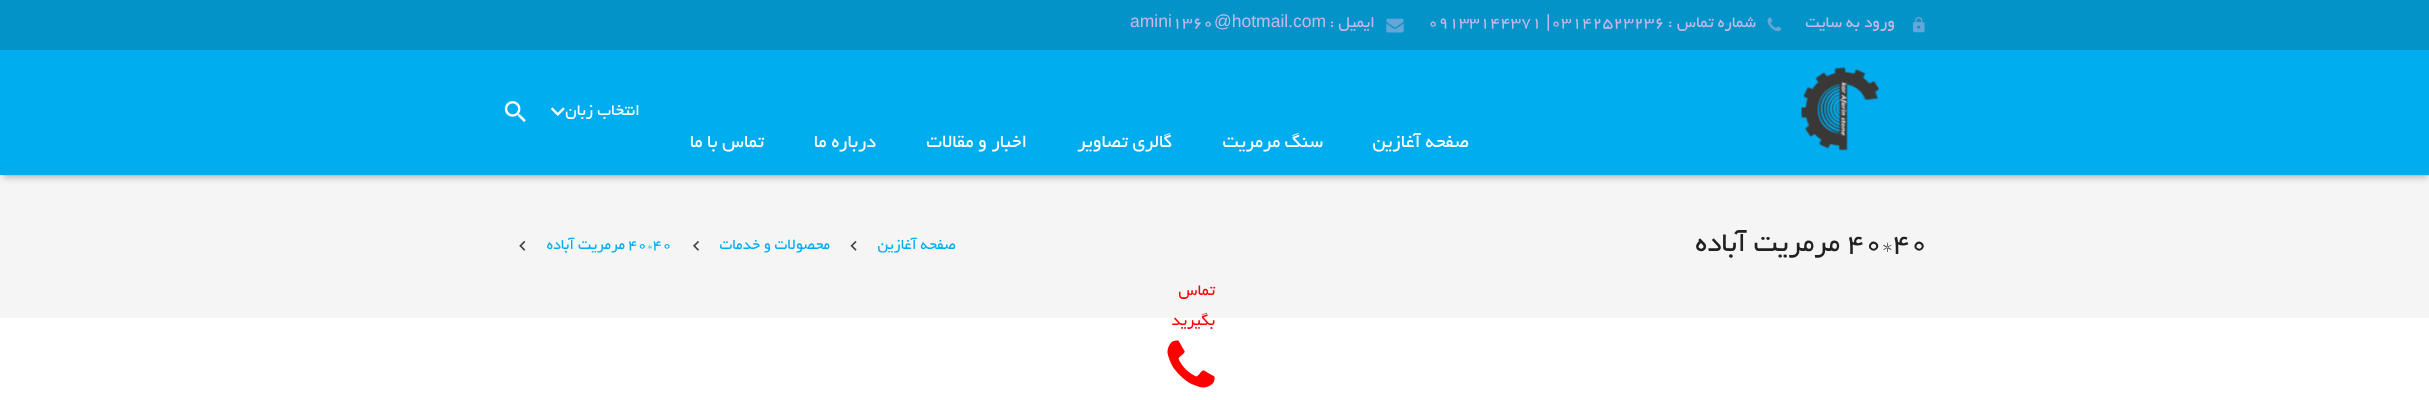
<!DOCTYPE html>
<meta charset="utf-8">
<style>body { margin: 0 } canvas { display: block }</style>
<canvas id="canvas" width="2429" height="400"></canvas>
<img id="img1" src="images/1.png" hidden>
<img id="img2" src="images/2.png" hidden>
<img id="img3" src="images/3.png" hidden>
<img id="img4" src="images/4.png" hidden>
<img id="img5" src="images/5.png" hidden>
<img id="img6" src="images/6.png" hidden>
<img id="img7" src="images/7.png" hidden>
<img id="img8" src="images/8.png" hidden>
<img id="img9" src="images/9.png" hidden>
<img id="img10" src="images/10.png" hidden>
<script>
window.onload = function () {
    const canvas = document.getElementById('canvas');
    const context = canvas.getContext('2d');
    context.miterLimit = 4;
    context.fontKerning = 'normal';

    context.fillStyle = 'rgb(255, 255, 255)';
    context.fillRect(0, 0, 2429, 400);
    context.fillStyle = 'rgb(2, 147, 201)';
    context.fillRect(0, 0, 2429, 50);
    context.drawImage(document.getElementById('img1'), 1912, 17, 13, 16);
    context.drawImage(document.getElementById('img2'), 1767, 17, 15, 15);
    context.drawImage(document.getElementById('img3'), 1386, 18, 18, 15);
    context.fillStyle = 'rgb(245, 245, 245)';
    context.fillRect(0, 175, 2429, 143);
    context.fillStyle = 'rgba(0, 0, 0, 0.05)';
    context.filter = 'blur(0.5px)';
    context.beginPath();
    context.rect(1, 54, 2428, 122);
    context.fill();
    context.filter = 'none';
    context.fillStyle = 'rgba(0, 0, 0, 0.22)';
    context.filter = 'blur(3px)';
    context.beginPath();
    context.rect(3, 58, 2425, 120);
    context.fill();
    context.filter = 'none';
    context.fillStyle = 'rgb(0, 174, 239)';
    context.fillRect(0, 50, 2429, 125);
    context.drawImage(document.getElementById('img4'), 1800, 67, 80, 84);
    context.drawImage(document.getElementById('img5'), 550, 107, 15, 9);
    context.drawImage(document.getElementById('img6'), 504, 101, 22, 21);
    context.drawImage(document.getElementById('img7'), 850, 240, 7, 11);
    context.drawImage(document.getElementById('img8'), 693, 240, 6, 11);
    context.drawImage(document.getElementById('img9'), 519, 240, 7, 11);
    context.drawImage(document.getElementById('img10'), 1167, 340, 48, 48);
    context.direction = 'rtl';
    context.font = '17.5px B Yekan';
    context.fillStyle = 'rgb(200, 184, 229)';
    context.fillText('ورود به سایت', 1895, 27);
    context.fillText('شماره تماس :', 1756, 27);
    context.direction = 'ltr';
    context.fillText('03142523236', 1551, 27);
    context.font = '17.5px Liberation Sans';
    context.fillText('|', 1546, 27);
    context.font = '17.5px B Yekan';
    context.fillText('09133144371', 1428, 27);
    context.direction = 'rtl';
    context.fillText('ایمیل :', 1375, 27);
    context.direction = 'ltr';
    context.font = '17.5px Liberation Sans';
    context.fillText('@hotmail com', 1214, 27);
    context.font = '17.5px B Yekan';
    context.fillText('1360', 1172, 27);
    context.font = '17.5px Liberation Sans';
    context.fillText('amini', 1130, 27);
    context.font = '17.5px B Yekan';
    context.fillText('.', 1288, 27);
    context.direction = 'rtl';
    context.fillStyle = 'rgb(255, 255, 255)';
    context.fillText('انتخاب زبان', 640, 115);
    context.font = '20px B Yekan';
    context.fillText('صفحه آغازین', 1469, 147);
    context.fillText('سنگ مرمریت', 1323, 147);
    context.fillText('گالری تصاویر', 1172, 147);
    context.fillText('اخبار و مقالات', 1027, 147);
    context.fillText('درباره ما', 876, 147);
    context.fillText('تماس با ما', 764, 147);
    context.direction = 'ltr';
    context.font = '30px B Yekan';
    context.fillStyle = 'rgb(33, 33, 33)';
    context.fillText('40*40', 1847, 251);
    context.direction = 'rtl';
    context.fillText('مرمریت آباده', 1840, 251);
    context.font = '16.25px B Yekan';
    context.fillStyle = 'rgb(0, 174, 239)';
    context.fillText('صفحه آغازین', 956, 249);
    context.fillText('محصولات و خدمات', 830, 249);
    context.direction = 'ltr';
    context.fillText('40*40', 628, 249);
    context.direction = 'rtl';
    context.fillText('مرمریت آباده', 625, 249);
    context.font = '17.5px B Yekan';
    context.fillStyle = 'rgb(255, 0, 0)';
    context.fillText('تماس', 1215, 295);
    context.fillText('بگیرید', 1215, 325);
};
</script>
